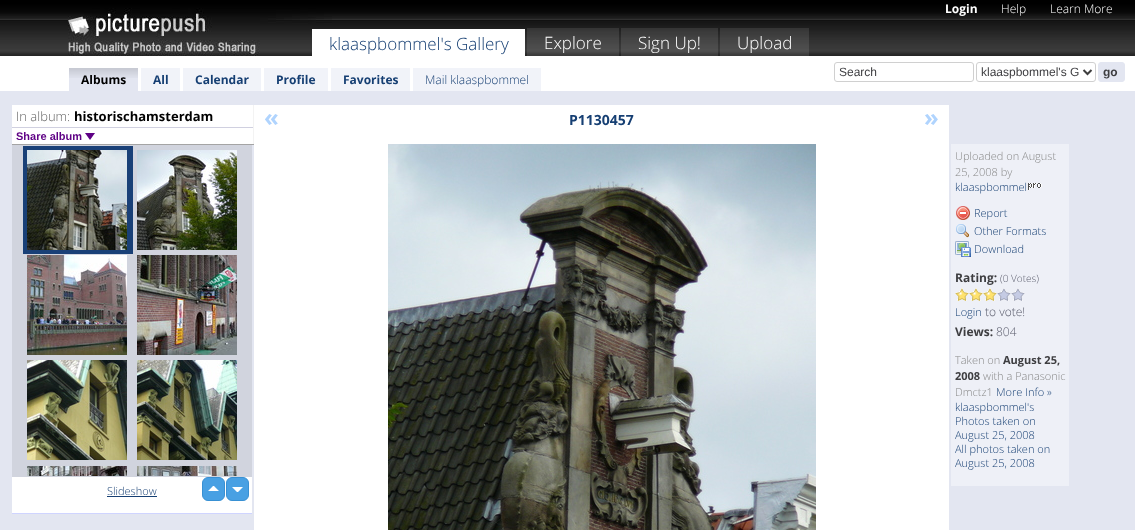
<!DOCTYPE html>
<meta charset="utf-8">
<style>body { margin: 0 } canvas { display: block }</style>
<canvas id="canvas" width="1135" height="530"></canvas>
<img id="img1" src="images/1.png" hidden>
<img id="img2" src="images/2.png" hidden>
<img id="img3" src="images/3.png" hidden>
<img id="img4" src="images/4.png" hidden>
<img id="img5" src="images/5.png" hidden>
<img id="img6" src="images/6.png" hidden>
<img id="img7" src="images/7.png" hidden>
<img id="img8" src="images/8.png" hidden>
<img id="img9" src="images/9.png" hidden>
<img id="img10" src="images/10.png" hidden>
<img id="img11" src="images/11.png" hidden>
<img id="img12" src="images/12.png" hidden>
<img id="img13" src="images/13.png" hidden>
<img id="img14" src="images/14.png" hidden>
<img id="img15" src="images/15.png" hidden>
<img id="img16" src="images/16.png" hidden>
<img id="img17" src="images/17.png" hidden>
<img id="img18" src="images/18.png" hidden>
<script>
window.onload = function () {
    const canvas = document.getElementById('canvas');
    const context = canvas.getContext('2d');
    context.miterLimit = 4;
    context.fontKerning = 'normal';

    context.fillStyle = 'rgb(227, 230, 241)';
    context.fillRect(0, 0, 1135, 530);
    context.drawImage(document.getElementById('img1'), 0, 0, 1135, 56);
    context.drawImage(document.getElementById('img2'), 68, 8, 264, 48);
    context.fillStyle = 'rgb(255, 255, 255)';
    context.fillRect(312, 29, 213, 27);
    context.fillStyle = 'rgba(255, 255, 255, 0.1)';
    context.fillRect(527, 28, 92, 28);
    context.fillRect(621, 28, 97, 28);
    context.fillRect(720, 28, 89, 28);
    context.fillStyle = 'rgb(255, 255, 255)';
    context.fillRect(0, 56, 1135, 35);
    context.fillStyle = 'rgb(227, 230, 241)';
    context.fillRect(69, 68, 69, 23);
    context.drawImage(document.getElementById('img3'), 69, 68, 69, 10);
    context.fillStyle = 'rgb(241, 243, 249)';
    context.fillRect(141, 68, 39, 23);
    context.fillRect(183, 68, 78, 23);
    context.fillRect(264, 68, 64, 23);
    context.fillRect(331, 68, 79, 23);
    context.fillRect(413, 68, 128, 23);
    context.beginPath();
    context.roundRect(834.5, 62.5, 139, 19, 2.5);
    context.strokeStyle = 'rgb(208, 208, 208)';
    context.stroke();
    context.beginPath();
    context.roundRect(976.5, 62.5, 119, 19, 2.5);
    context.stroke();
    context.beginPath();
    context.moveTo(1083.5, 70);
    context.lineTo(1087.5, 74);
    context.lineTo(1091.5, 70);
    context.strokeStyle = 'rgb(62, 62, 62)';
    context.lineWidth = 2;
    context.stroke();
    context.fillStyle = 'rgb(227, 230, 241)';
    context.beginPath();
    context.roundRect(1098.5, 62.5, 26, 19, 2.5);
    context.fill();
    context.strokeStyle = 'rgb(227, 230, 241)';
    context.lineWidth = 1;
    context.stroke();
    context.fillStyle = 'rgb(255, 255, 255)';
    context.fillRect(12, 105, 241, 39);
    context.fillStyle = 'rgb(243, 243, 243)';
    context.fillRect(253, 105, 1, 40);
    context.fillStyle = 'rgb(164, 164, 164)';
    context.fillRect(12, 144, 242, 1);
    context.fillStyle = 'rgb(208, 208, 224)';
    context.fillRect(12, 127, 241, 1);
    context.fillStyle = 'rgb(94, 0, 133)';
    context.beginPath();
    context.moveTo(85, 133);
    context.lineTo(95, 133);
    context.lineTo(90, 140);
    context.closePath();
    context.fill();
    context.fillStyle = 'rgb(209, 212, 222)';
    context.fillRect(12, 145, 240, 332);
    context.fillStyle = 'rgb(207, 212, 255)';
    context.fillRect(12, 513, 240, 1);
    context.fillStyle = 'rgb(25, 64, 119)';
    context.fillRect(23, 146, 110, 108);
    context.drawImage(document.getElementById('img4'), 27, 150, 100, 100);
    context.drawImage(document.getElementById('img5'), 137, 150, 100, 100);
    context.drawImage(document.getElementById('img6'), 27, 255, 100, 100);
    context.drawImage(document.getElementById('img7'), 137, 255, 100, 100);
    context.drawImage(document.getElementById('img8'), 27, 360, 100, 100);
    context.drawImage(document.getElementById('img9'), 137, 360, 100, 100);
    context.drawImage(document.getElementById('img10'), 27, 466, 100, 10);
    context.drawImage(document.getElementById('img11'), 137, 466, 100, 10);
    context.fillStyle = 'rgb(255, 255, 255)';
    context.fillRect(12, 477, 240, 36);
    context.fillStyle = 'rgb(72, 160, 227)';
    context.beginPath();
    context.roundRect(202.5, 477.5, 22, 23, 5.5);
    context.fill();
    context.strokeStyle = 'rgb(56, 144, 211)';
    context.stroke();
    context.beginPath();
    context.roundRect(226.5, 477.5, 22, 23, 5.5);
    context.fill();
    context.stroke();
    context.fillStyle = 'rgb(255, 255, 255)';
    context.beginPath();
    context.moveTo(219, 491);
    context.lineTo(208, 491);
    context.lineTo(213, 486);
    context.lineTo(214, 486);
    context.closePath();
    context.moveTo(232, 487);
    context.lineTo(243, 487);
    context.lineTo(238, 492);
    context.lineTo(237, 492);
    context.closePath();
    context.fill();
    context.fillStyle = 'rgb(22, 63, 115)';
    context.fillRect(107, 496, 50, 1);
    context.fillStyle = 'rgb(255, 255, 255)';
    context.fillRect(254, 105, 695, 425);
    context.drawImage(document.getElementById('img12'), 388, 144, 428, 386);
    context.fillStyle = 'rgb(238, 240, 247)';
    context.fillRect(951, 144, 118, 342);
    context.drawImage(document.getElementById('img13'), 1028, 183, 14, 7);
    context.drawImage(document.getElementById('img14'), 956, 206, 14, 14);
    context.drawImage(document.getElementById('img15'), 956, 224, 13, 14);
    context.drawImage(document.getElementById('img16'), 955, 241, 16, 16);
    context.drawImage(document.getElementById('img17'), 955, 288, 14, 13);
    context.drawImage(document.getElementById('img17'), 969, 288, 14, 13);
    context.drawImage(document.getElementById('img17'), 983, 288, 14, 13);
    context.drawImage(document.getElementById('img18'), 997, 288, 14, 13);
    context.drawImage(document.getElementById('img18'), 1011, 288, 14, 13);
    context.font = '300 17px Open Sans';
    context.fillStyle = 'rgb(22, 63, 115)';
    context.fillText('klaaspbommel\'s Gallery', 329, 50);
    context.fillStyle = 'rgb(255, 255, 255)';
    context.fillText('Explore', 544, 49);
    context.fillText('Sign Up!', 638, 49);
    context.fillText('Upload', 737, 49);
    context.font = 'bold 12px Open Sans';
    context.fillText('Login', 945, 13);
    context.font = '300 12px Open Sans';
    context.fillText('Help', 1001, 13);
    context.fillText('Learn More', 1050, 13);
    context.font = 'bold 12px Open Sans';
    context.fillStyle = 'rgb(0, 0, 0)';
    context.fillText('Albums', 81, 84);
    context.fillStyle = 'rgb(22, 63, 115)';
    context.fillText('All', 153, 84);
    context.fillText('Calendar', 195, 84);
    context.fillText('Profile', 276, 84);
    context.fillText('Favorites', 343, 84);
    context.font = '300 12px Open Sans';
    context.fillText('Mail klaaspbommel', 425, 84);
    context.font = '12px Liberation Sans';
    context.fillStyle = 'rgb(62, 62, 65)';
    context.fillText('Search', 839, 76);
    context.fillText('klaaspbommel\'s G', 981, 76);
    context.font = 'bold 12px Liberation Sans';
    context.fillText('go', 1103, 76);
    context.font = '300 13px Open Sans';
    context.fillStyle = 'rgb(102, 102, 102)';
    context.fillText('In album:', 16, 121);
    context.font = 'bold 13px Open Sans';
    context.fillStyle = 'rgb(0, 0, 0)';
    context.fillText('historischamsterdam', 74, 121);
    context.font = 'bold 11px Liberation Sans';
    context.fillStyle = 'rgb(94, 0, 133)';
    context.fillText('Share album', 16, 140);
    context.font = '300 11px Open Sans';
    context.fillStyle = 'rgb(22, 63, 115)';
    context.fillText('Slideshow', 107, 495);
    context.font = 'bold 24px Open Sans';
    context.fillStyle = 'rgb(176, 212, 254)';
    context.fillText('«', 264, 126);
    context.font = 'bold 14px Open Sans';
    context.fillStyle = 'rgb(22, 63, 115)';
    context.fillText('P1130457', 569, 125);
    context.font = 'bold 24px Open Sans';
    context.fillStyle = 'rgb(176, 212, 254)';
    context.fillText('»', 924, 126);
    context.font = '300 11px Open Sans';
    context.fillStyle = 'rgb(136, 136, 136)';
    context.fillText('Uploaded on August', 955, 160);
    context.fillText('25, 2008 by', 955, 176);
    context.fillStyle = 'rgb(22, 63, 115)';
    context.fillText('klaaspbommel', 955, 191);
    context.fillText('Report', 974, 217);
    context.fillText('Other Formats', 974, 235);
    context.fillText('Download', 974, 253);
    context.font = 'bold 12px Open Sans';
    context.fillStyle = 'rgb(62, 62, 65)';
    context.fillText('Rating:', 955, 282);
    context.font = '300 10px Open Sans';
    context.fillStyle = 'rgb(90, 92, 108)';
    context.fillText('(0 Votes)', 1000, 282);
    context.font = '300 11px Open Sans';
    context.fillStyle = 'rgb(22, 63, 115)';
    context.fillText('Login', 955, 316);
    context.font = '300 12px Open Sans';
    context.fillStyle = 'rgb(90, 92, 108)';
    context.fillText('to vote!', 985, 316);
    context.font = 'bold 12px Open Sans';
    context.fillStyle = 'rgb(62, 62, 65)';
    context.fillText('Views:', 955, 336);
    context.font = '300 12px Open Sans';
    context.fillStyle = 'rgb(90, 92, 108)';
    context.fillText('804', 996, 336);
    context.font = '300 11px Open Sans';
    context.fillStyle = 'rgb(136, 136, 136)';
    context.fillText('Taken on', 955, 364);
    context.font = 'bold 11px Open Sans';
    context.fillStyle = 'rgb(62, 62, 65)';
    context.fillText('August 25,', 1003, 364);
    context.fillText('2008', 955, 380);
    context.font = '300 11px Open Sans';
    context.fillStyle = 'rgb(136, 136, 136)';
    context.fillText('with a Panasonic', 983, 380);
    context.fillText('Dmctz1', 955, 396);
    context.fillStyle = 'rgb(22, 63, 115)';
    context.fillText('More Info »', 996, 396);
    context.fillText('klaaspbommel\'s', 955, 411);
    context.fillText('Photos taken on', 955, 425);
    context.fillText('August 25, 2008', 955, 439);
    context.fillText('All photos taken on', 955, 453);
    context.fillText('August 25, 2008', 955, 467);
};
</script>
